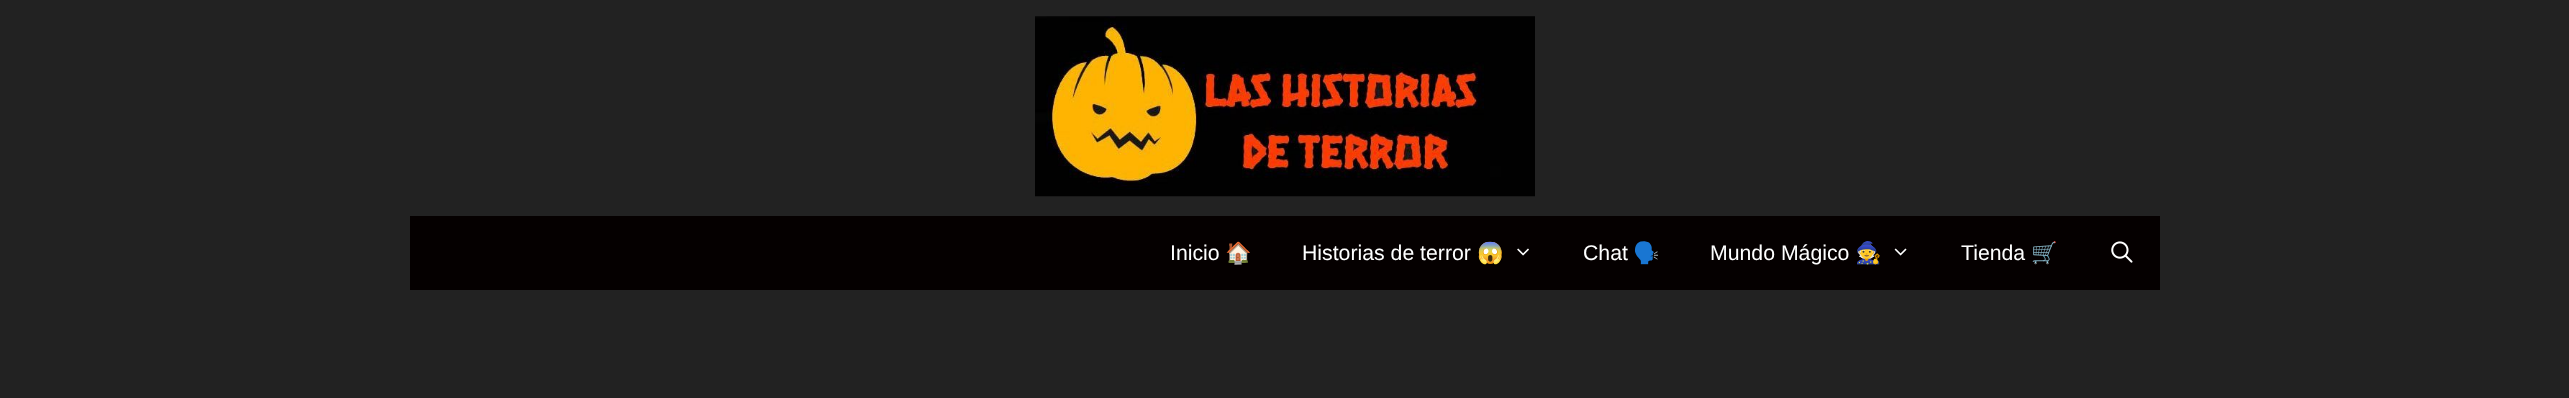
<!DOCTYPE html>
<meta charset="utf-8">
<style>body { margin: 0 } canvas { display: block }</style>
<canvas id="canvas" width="2569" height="398"></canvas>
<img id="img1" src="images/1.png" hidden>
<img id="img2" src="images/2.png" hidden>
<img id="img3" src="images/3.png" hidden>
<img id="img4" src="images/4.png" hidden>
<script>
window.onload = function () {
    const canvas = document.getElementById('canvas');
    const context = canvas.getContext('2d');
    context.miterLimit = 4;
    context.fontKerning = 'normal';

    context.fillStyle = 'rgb(34, 34, 34)';
    context.fillRect(0, 0, 2569, 398);
    context.drawImage(document.getElementById('img1'), 1035, 16, 500, 181);
    context.fillStyle = 'rgb(5, 0, 0)';
    context.fillRect(410, 216, 1750, 74);
    context.drawImage(document.getElementById('img2'), 1517, 248, 12, 8);
    context.drawImage(document.getElementById('img3'), 1894, 248, 13, 8);
    context.drawImage(document.getElementById('img4'), 2111, 241, 22, 22);
    context.font = '21.25px Liberation Sans';
    context.fillStyle = 'rgb(255, 255, 255)';
    context.fillText('Inicio', 1170, 260);
    context.font = '21.25px Noto Color Emoji';
    context.fillText('🏠', 1225, 260);
    context.font = '21.25px Liberation Sans';
    context.fillText('Historias de terror', 1302, 260);
    context.font = '21.25px Noto Color Emoji';
    context.fillText('😱', 1477, 260);
    context.font = '21.25px Liberation Sans';
    context.fillText('Chat', 1583, 260);
    context.font = '21.25px Noto Color Emoji';
    context.fillText('🗣️', 1633, 260);
    context.font = '21.25px Liberation Sans';
    context.fillText('Mundo Mágico', 1710, 260);
    context.font = '21.25px Noto Color Emoji';
    context.fillText('🧙‍', 1855, 260);
    context.font = '21.25px Liberation Sans';
    context.fillText('Tienda', 1961, 260);
    context.font = '21.25px Noto Color Emoji';
    context.fillText('🛒', 2031, 260);
};
</script>
